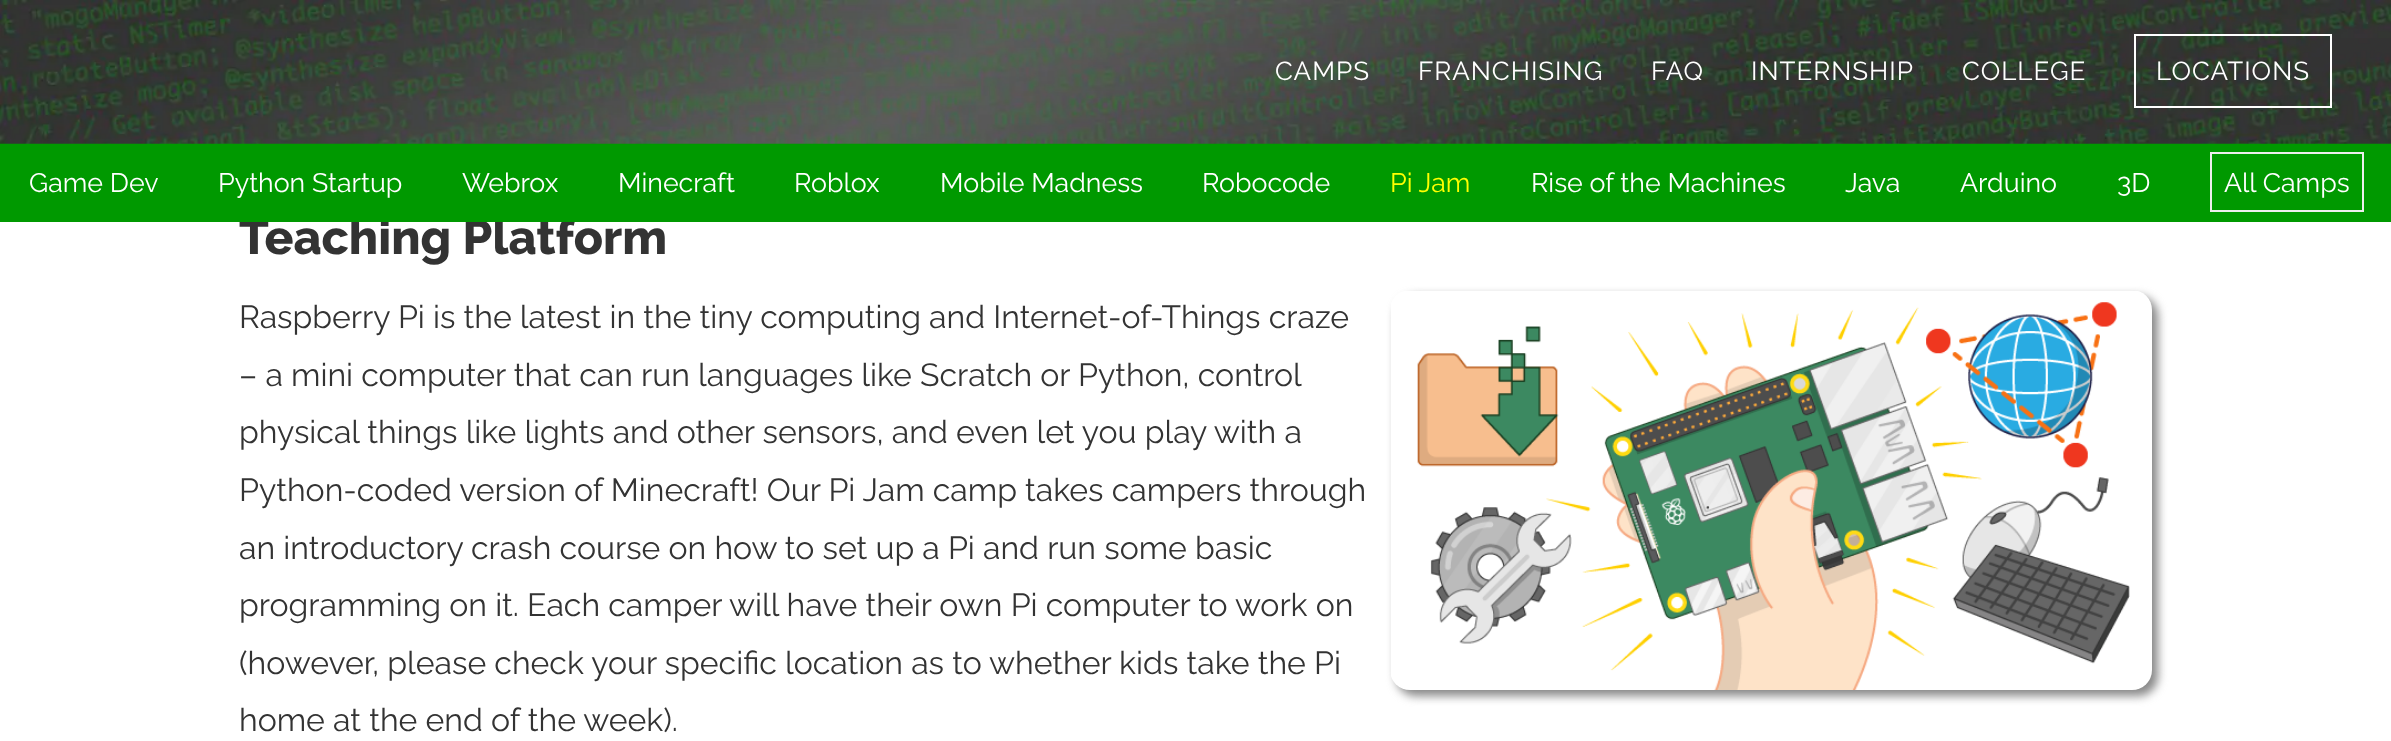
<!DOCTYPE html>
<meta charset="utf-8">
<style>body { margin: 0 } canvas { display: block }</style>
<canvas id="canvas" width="2391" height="741"></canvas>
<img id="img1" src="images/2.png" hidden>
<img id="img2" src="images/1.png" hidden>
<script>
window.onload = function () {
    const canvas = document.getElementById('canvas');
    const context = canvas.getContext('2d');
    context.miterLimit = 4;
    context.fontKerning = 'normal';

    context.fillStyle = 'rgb(255, 255, 255)';
    context.fillRect(0, 0, 2391, 741);
    context.fillStyle = 'rgb(136, 136, 136)';
    context.filter = 'blur(5px)';
    context.beginPath();
    context.roundRect(1396, 296, 762, 400, 20);
    context.fill();
    context.filter = 'none';
    context.drawImage(document.getElementById('img1'), 1391, 291, 761, 399);
    context.font = '800 48px Raleway';
    context.fillStyle = 'rgb(51, 51, 51)';
    context.fillText('Teaching Platform', 239, 254);
    context.fillStyle = 'rgb(0, 153, 0)';
    context.fillRect(0, 143, 2391, 79);
    context.drawImage(document.getElementById('img2'), 0, 0, 2391, 144);
    context.strokeStyle = 'rgb(255, 255, 255)';
    context.lineWidth = 2;
    context.strokeRect(2135, 35, 196, 72);
    context.letterSpacing = '1px';
    context.font = '26px Raleway';
    context.fillStyle = 'rgb(255, 255, 255)';
    context.fillText('LOCATIONS', 2156, 80);
    context.fillText('COLLEGE', 1962, 80);
    context.fillText('INTERNSHIP', 1751, 80);
    context.fillText('FAQ', 1651, 80);
    context.fillText('FRANCHISING', 1418, 80);
    context.fillText('CAMPS', 1275, 80);
    context.strokeStyle = 'rgb(238, 238, 238)';
    context.strokeRect(2211, 153, 152, 58);
    context.letterSpacing = '0px';
    context.font = '26.75px Raleway';
    context.fillText('All Camps', 2224, 192);
    context.fillText('3D', 2117, 192);
    context.fillText('Arduino', 1960, 192);
    context.fillText('Java', 1845, 192);
    context.fillText('Rise of the Machines', 1531, 192);
    context.fillStyle = 'rgb(255, 255, 0)';
    context.fillText('Pi Jam', 1390, 192);
    context.fillStyle = 'rgb(255, 255, 255)';
    context.fillText('Robocode', 1202, 192);
    context.fillText('Mobile Madness', 940, 192);
    context.fillText('Roblox', 794, 192);
    context.fillText('Minecraft', 618, 192);
    context.fillText('Webrox', 462, 192);
    context.fillText('Python Startup', 218, 192);
    context.fillText('Game Dev', 29, 192);
    context.font = '32px Raleway';
    context.fillStyle = 'rgb(51, 51, 51)';
    context.fillText('Raspberry Pi is the latest in the tiny computing and Internet-of-Things craze', 239, 328);
    context.fillText('– a mini computer that can run languages like Scratch or Python, control', 239, 386);
    context.fillText('physical things like lights and other sensors, and even let you play with a', 239, 443);
    context.fillText('Python-coded version of Minecraft! Our Pi Jam camp takes campers through', 239, 501);
    context.fillText('an introductory crash course on how to set up a Pi and run some basic', 239, 559);
    context.fillText('programming on it. Each camper will have their own Pi computer to work on', 239, 616);
    context.fillText('(however, please check your specific location as to whether kids take the Pi', 239, 674);
    context.fillText('home at the end of the week).', 239, 731);
};
</script>
